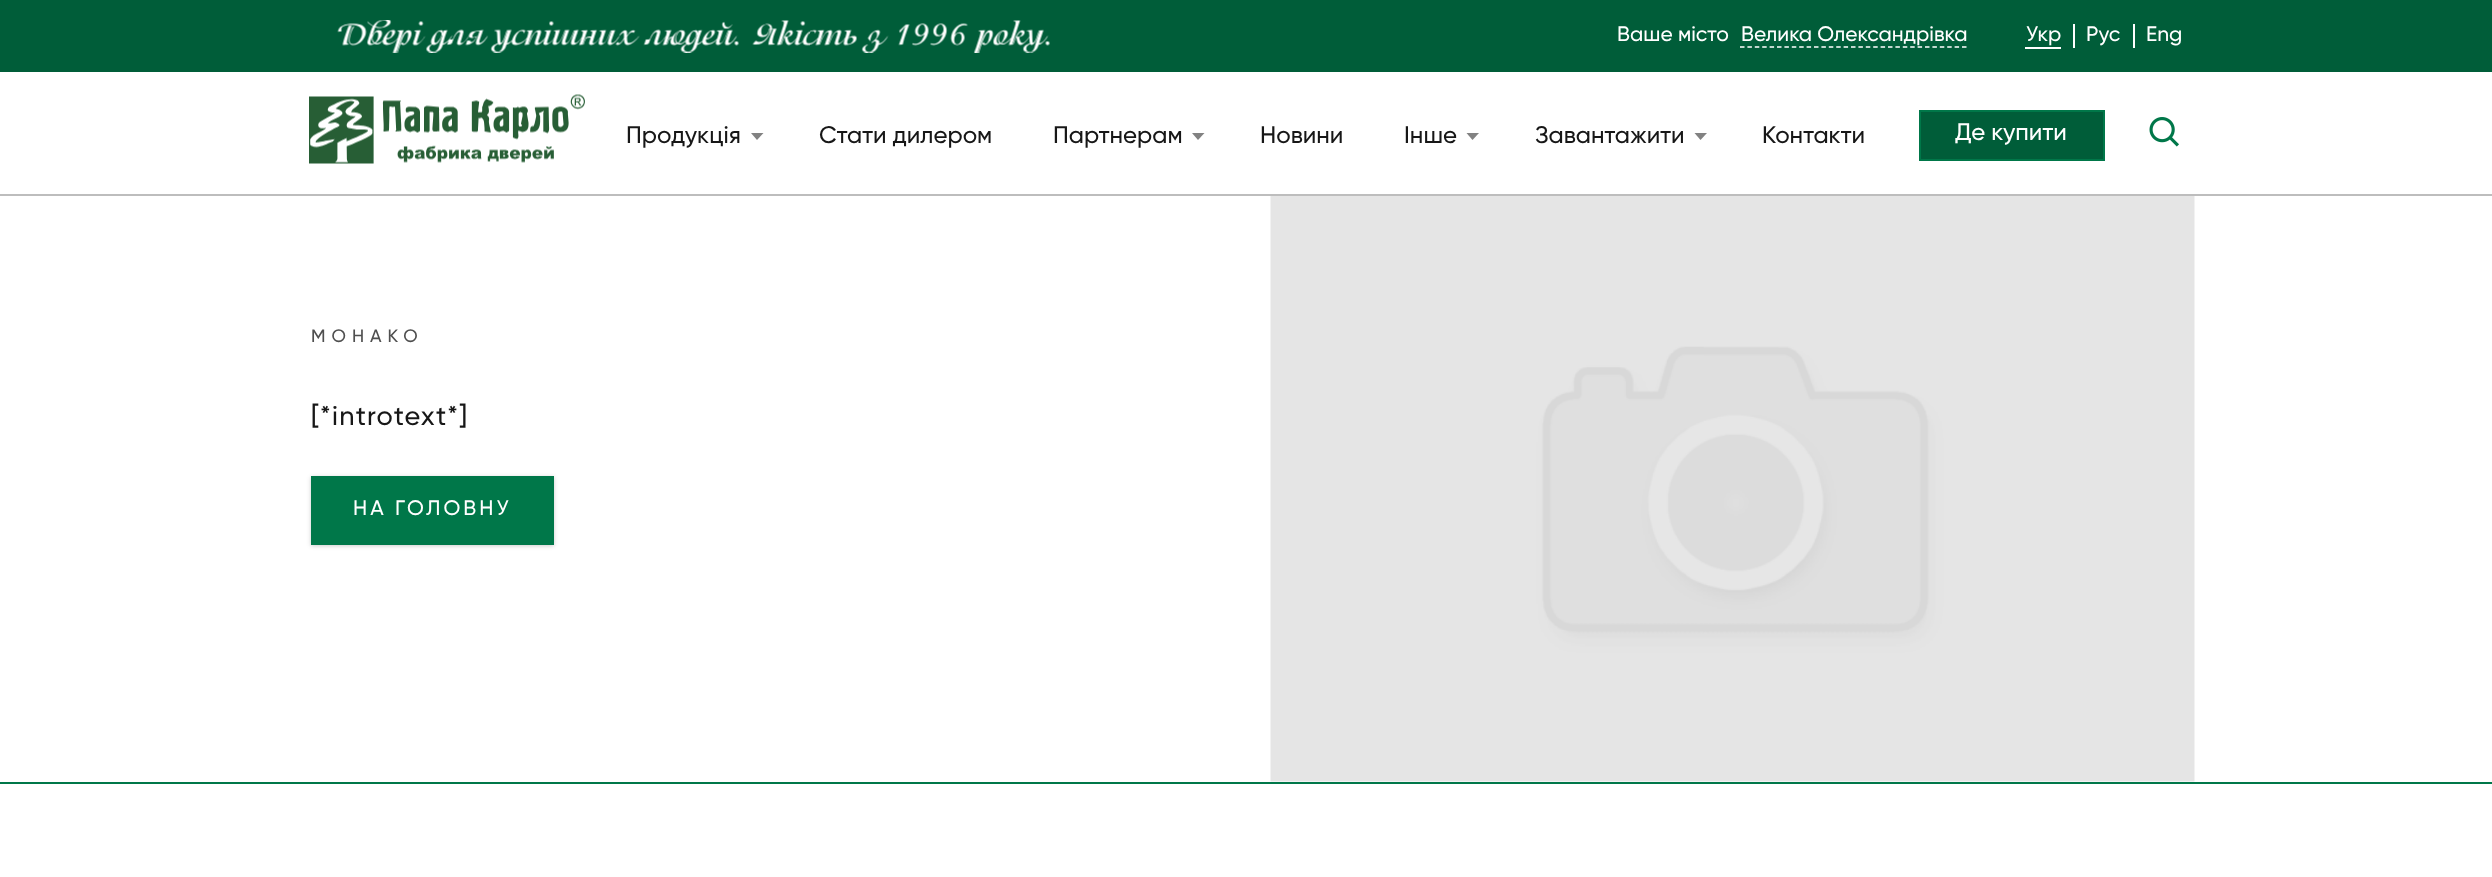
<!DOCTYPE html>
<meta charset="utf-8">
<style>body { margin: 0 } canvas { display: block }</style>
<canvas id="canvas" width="2492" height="877"></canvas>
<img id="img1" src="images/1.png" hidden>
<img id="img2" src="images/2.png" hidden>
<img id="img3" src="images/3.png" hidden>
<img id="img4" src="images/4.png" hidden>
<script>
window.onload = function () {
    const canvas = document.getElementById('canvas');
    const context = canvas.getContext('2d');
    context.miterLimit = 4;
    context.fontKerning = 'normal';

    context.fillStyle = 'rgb(255, 255, 255)';
    context.fillRect(0, 0, 2492, 877);
    context.fillStyle = 'rgb(0, 93, 57)';
    context.fillRect(0, 0, 2492, 72);
    context.drawImage(document.getElementById('img1'), 337, 20, 713, 33);
    context.beginPath();
    context.moveTo(1740, 47);
    context.lineTo(1966.5, 47);
    context.strokeStyle = 'rgb(255, 255, 255)';
    context.lineWidth = 1.5;
    context.setLineDash([4.5, 2.9]);
    context.stroke();
    context.fillStyle = 'rgb(255, 255, 255)';
    context.fillRect(2073, 24, 2, 24);
    context.fillRect(2025, 47, 36, 2);
    context.fillRect(2133, 24, 2, 24);
    context.fillStyle = 'rgb(189, 189, 189)';
    context.fillRect(0, 194, 2492, 2);
    context.drawImage(document.getElementById('img2'), 309, 94, 276, 70);
    context.fillStyle = 'rgb(130, 130, 130)';
    context.beginPath();
    context.moveTo(757, 140);
    context.lineTo(751, 133);
    context.lineTo(763.5, 133);
    context.closePath();
    context.fill();
    context.beginPath();
    context.moveTo(1198, 140);
    context.lineTo(1192, 133);
    context.lineTo(1204.5, 133);
    context.closePath();
    context.fill();
    context.beginPath();
    context.moveTo(1472.5, 140);
    context.lineTo(1466.5, 133);
    context.lineTo(1479, 133);
    context.closePath();
    context.fill();
    context.beginPath();
    context.moveTo(1700.5, 140);
    context.lineTo(1694.5, 133);
    context.lineTo(1707, 133);
    context.closePath();
    context.fill();
    context.fillStyle = 'rgb(0, 93, 57)';
    context.beginPath();
    context.rect(1920, 111, 184, 49);
    context.fill();
    context.strokeStyle = 'rgb(0, 119, 73)';
    context.lineWidth = 2;
    context.setLineDash([]);
    context.stroke();
    context.drawImage(document.getElementById('img3'), 2149, 117, 30, 30);
    context.fillStyle = 'rgba(0, 0, 0, 0.2)';
    context.filter = 'blur(2px)';
    context.beginPath();
    context.rect(311, 477, 243, 69);
    context.fill();
    context.filter = 'none';
    context.fillStyle = 'rgb(0, 119, 73)';
    context.fillRect(311, 476, 243, 69);
    context.drawImage(document.getElementById('img4'), 1270, 196, 925, 586);
    context.fillRect(0, 782, 2492, 2);
    context.font = '500 21px Gilroy';
    context.fillStyle = 'rgb(255, 255, 255)';
    context.fillText('Ваше місто', 1617, 41);
    context.fillText('Велика Олександрівка', 1741, 41);
    context.fillText('Укр', 2026, 41);
    context.fillText('Рус', 2086, 41);
    context.fillText('Eng', 2146, 41);
    context.font = '500 24px Gilroy';
    context.fillStyle = 'rgb(23, 23, 23)';
    context.fillText('Продукція', 626, 143);
    context.fillText('Стати дилером', 819, 143);
    context.fillText('Партнерам', 1053, 143);
    context.fillText('Новини', 1260, 143);
    context.fillText('Інше', 1404, 143);
    context.fillText('Завантажити', 1535, 143);
    context.fillText('Контакти', 1762, 143);
    context.fillStyle = 'rgb(255, 255, 255)';
    context.fillText('Де купити', 1955, 140);
    context.letterSpacing = '6px';
    context.font = '500 18px Gilroy';
    context.fillStyle = 'rgb(79, 79, 79)';
    context.fillText('МОНАКО', 311, 342);
    context.letterSpacing = '1.25px';
    context.font = '500 27px Gilroy';
    context.fillStyle = 'rgb(23, 23, 23)';
    context.fillText('[*introtext*]', 311, 425);
    context.letterSpacing = '3px';
    context.font = '500 21px Gilroy';
    context.fillStyle = 'rgb(255, 255, 255)';
    context.fillText('НА ГОЛОВНУ', 353, 515);
};
</script>
